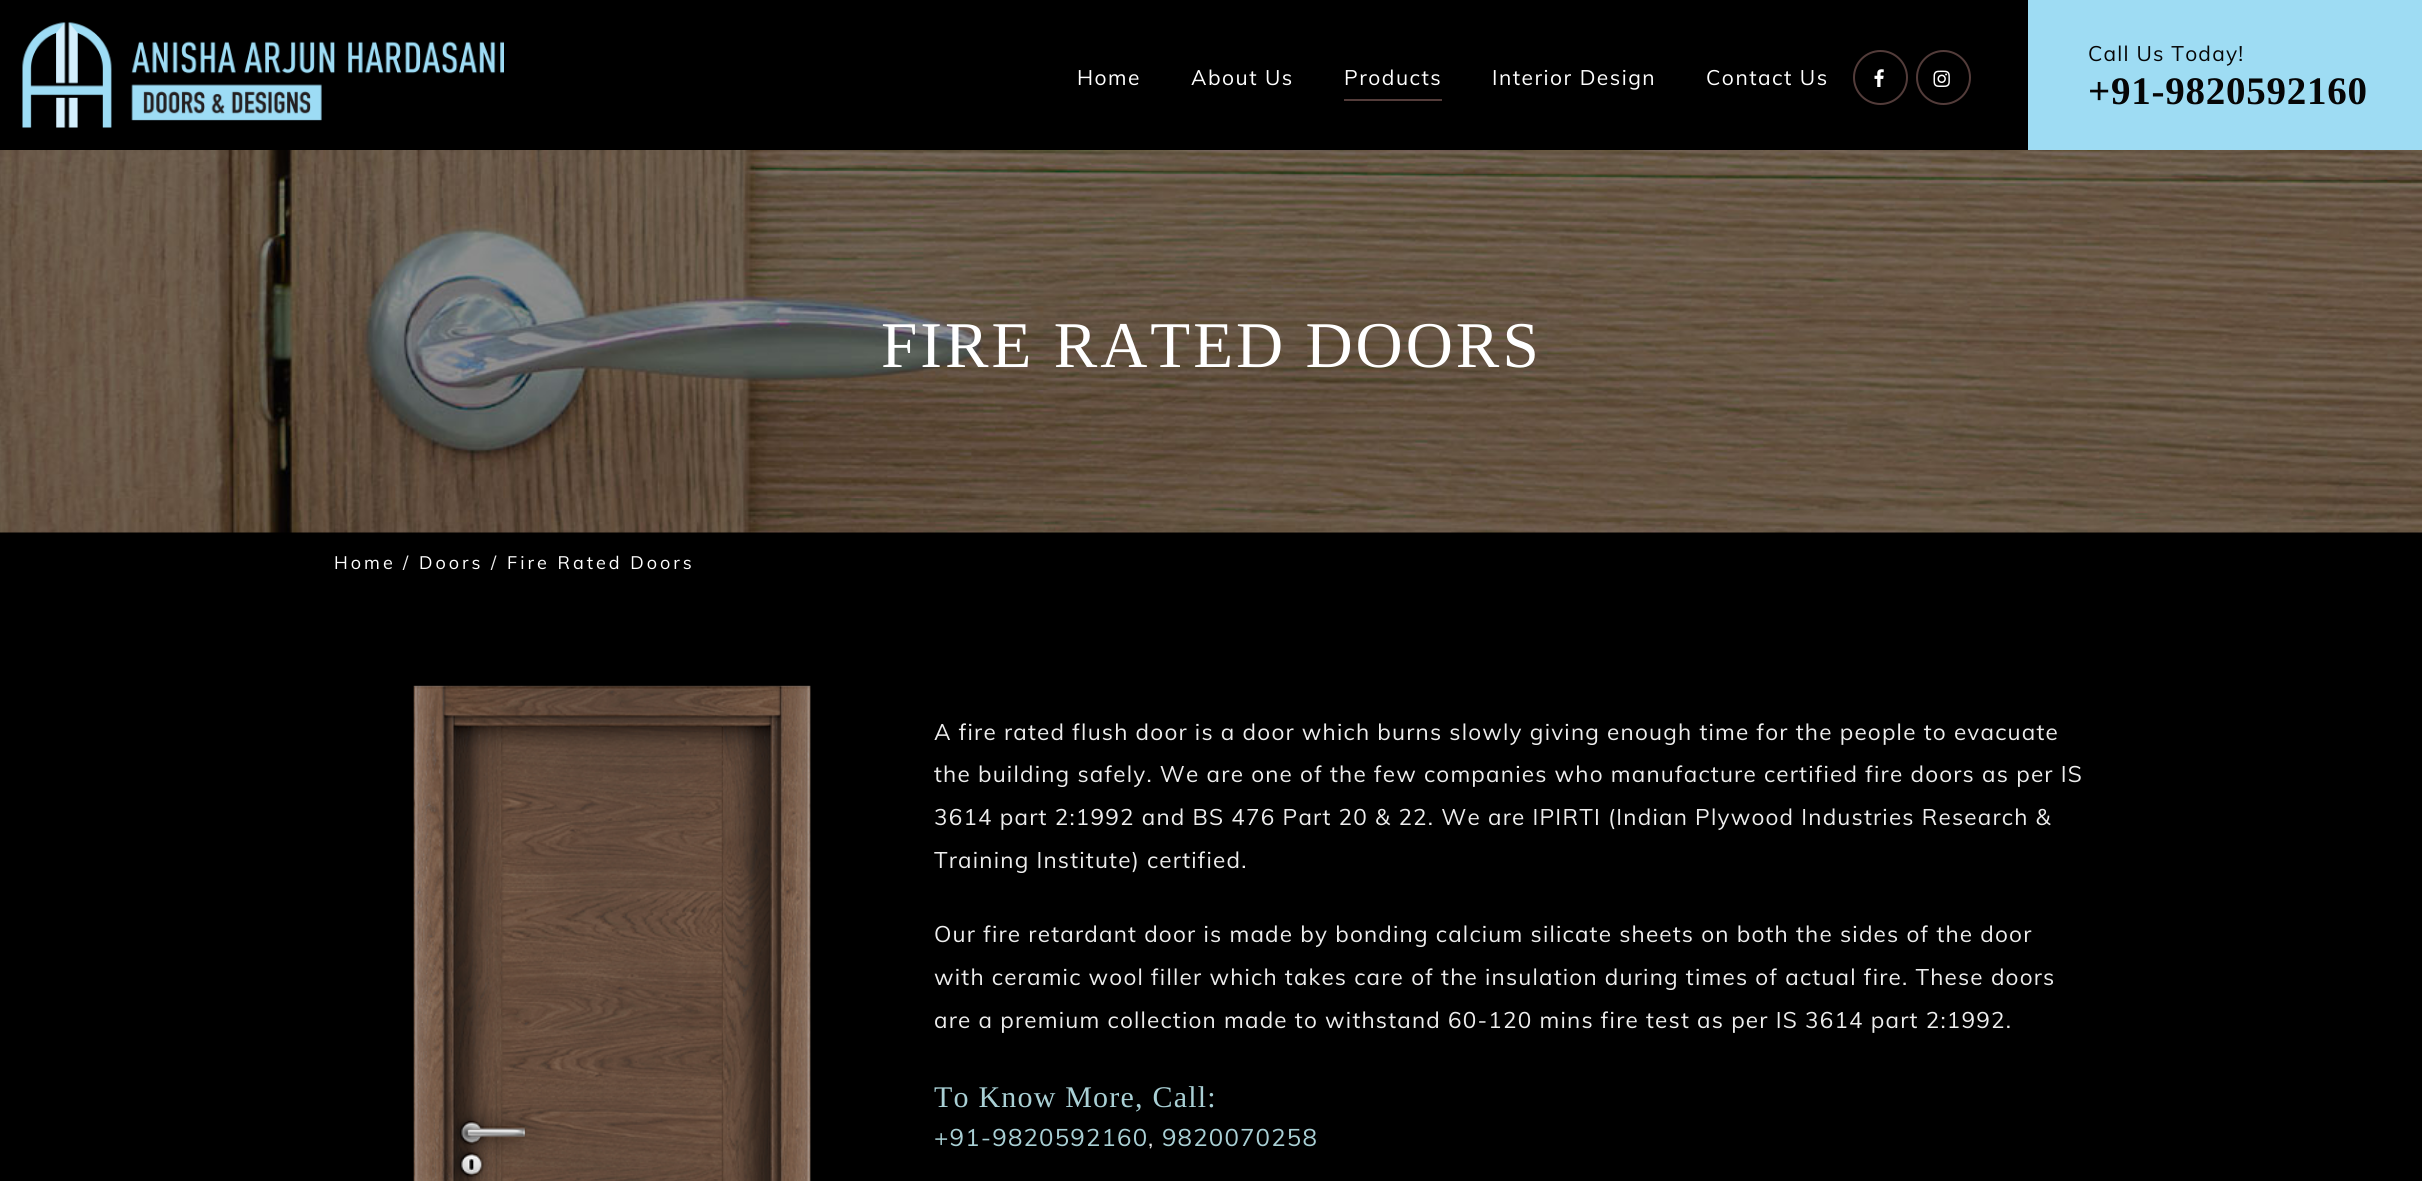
import math
import cairo

surface = cairo.ImageSurface(cairo.FORMAT_RGB24, 2422, 1181)
ctx = cairo.Context(surface)
options = cairo.FontOptions()
options.set_hint_metrics(cairo.HINT_METRICS_OFF)
options.set_hint_style(cairo.HINT_STYLE_NONE)
ctx.set_font_options(options)
ctx.set_miter_limit(4)


def spaced_text(x, y, s, letter, word):
    ctx.move_to(x, y)
    for ch in s:
        ctx.show_text(ch)
        ctx.rel_move_to(letter + word * (ch == ' '), 0)


def picture(path, x, y, w, h):
    ctx.save()
    ctx.set_source_surface(cairo.ImageSurface.create_from_png(path), x, y)
    ctx.rectangle(x, y, w, h)
    ctx.fill()
    ctx.restore()


ctx.set_source_rgb(0, 0, 0)
ctx.paint()
picture("img1.png", 22, 22, 482, 106)
ctx.select_font_face("Muli")
ctx.set_font_size(21)
ctx.set_source_rgb(1, 1, 1)
spaced_text(1077, 85, "Home", 1.5, 0)
spaced_text(1191, 85, "About Us", 1.5, 0)
ctx.set_source_rgb(0.325, 0.235, 0.227)
ctx.rectangle(1344, 99, 98, 2)
ctx.fill()
ctx.set_source_rgb(1, 1, 1)
spaced_text(1344, 85, "Products", 1.5, 0)
spaced_text(1492, 85, "Interior Design", 1.5, 0)
spaced_text(1706, 85, "Contact Us", 1.5, 0)
ctx.new_path()
ctx.arc(1880.5, 77.5, 26.5, 0, 2 * math.pi)
ctx.set_source_rgb(0.325, 0.235, 0.227)
ctx.stroke()
picture("img2.png", 1874, 69, 10, 18)
ctx.arc(1943.5, 77.5, 26.5, 0, 2 * math.pi)
ctx.stroke()
picture("img3.png", 1933, 70, 17, 17)
ctx.set_source_rgb(0.62, 0.863, 0.953)
ctx.rectangle(2028, 0, 394, 150)
ctx.fill()
ctx.set_source_rgb(0.024, 0.024, 0.024)
spaced_text(2088, 61, "Call Us Today!", 1.2, 0)
ctx.select_font_face("Liberation Serif", cairo.FONT_SLANT_NORMAL, cairo.FONT_WEIGHT_BOLD)
ctx.set_font_size(39)
spaced_text(2088, 104, "+91-9820592160", 0.75, 0)
picture("img4.png", 0, 150, 2422, 383)
ctx.select_font_face("Liberation Serif")
ctx.set_font_size(65.25)
ctx.set_source_rgb(1, 1, 1)
spaced_text(881, 367, "FIRE RATED DOORS", 3, 0)
ctx.select_font_face("Muli")
ctx.set_font_size(18)
spaced_text(334, 569, "Home", 3, 0)
ctx.set_source_rgb(0.929, 0.929, 0.929)
spaced_text(403, 569, "/", 3, 0)
ctx.set_source_rgb(1, 1, 1)
spaced_text(419, 569, "Doors", 3, 0)
ctx.set_source_rgb(0.929, 0.929, 0.929)
spaced_text(491, 569, "/", 3, 0)
ctx.set_source_rgb(1, 1, 1)
spaced_text(507, 569, "Fire Rated Doors", 3, 0)
picture("img5.png", 413, 685, 398, 496)
ctx.set_font_size(22.5)
ctx.set_source_rgb(0.929, 0.929, 0.929)
spaced_text(934, 740, "A fire rated flush door is a door which burns slowly giving enough time for the people to evacuate", 1.2, 0)
spaced_text(934, 782, "the building safely. We are one of the few companies who manufacture certified fire doors as per IS", 1.2, 0)
spaced_text(934, 825, "3614 part 2:1992 and BS 476 Part 20 & 22. We are IPIRTI (Indian Plywood Industries Research &", 1.2, 0)
spaced_text(934, 868, "Training Institute) certified.", 1.2, 0)
spaced_text(934, 942, "Our fire retardant door is made by bonding calcium silicate sheets on both the sides of the door", 1.2, 0)
spaced_text(934, 985, "with ceramic wool filler which takes care of the insulation during times of actual fire. These doors", 1.2, 0)
spaced_text(934, 1028, "are a premium collection made to withstand 60-120 mins fire test as per IS 3614 part 2:1992.", 1.2, 0)
ctx.select_font_face("Liberation Serif")
ctx.set_font_size(30)
ctx.set_source_rgb(0.663, 0.816, 0.835)
spaced_text(934, 1107, "To Know More, Call:", 1.2, 0)
ctx.select_font_face("Muli")
ctx.set_font_size(24)
spaced_text(934, 1146, "+91-9820592160", 1.2, 0)
ctx.set_font_size(22.5)
ctx.set_source_rgb(0.929, 0.929, 0.929)
spaced_text(1148, 1146, ",", 1.2, 0)
ctx.set_font_size(24)
ctx.set_source_rgb(0.663, 0.816, 0.835)
spaced_text(1162, 1146, "9820070258", 1.2, 0)
surface.write_to_png("page.png")
